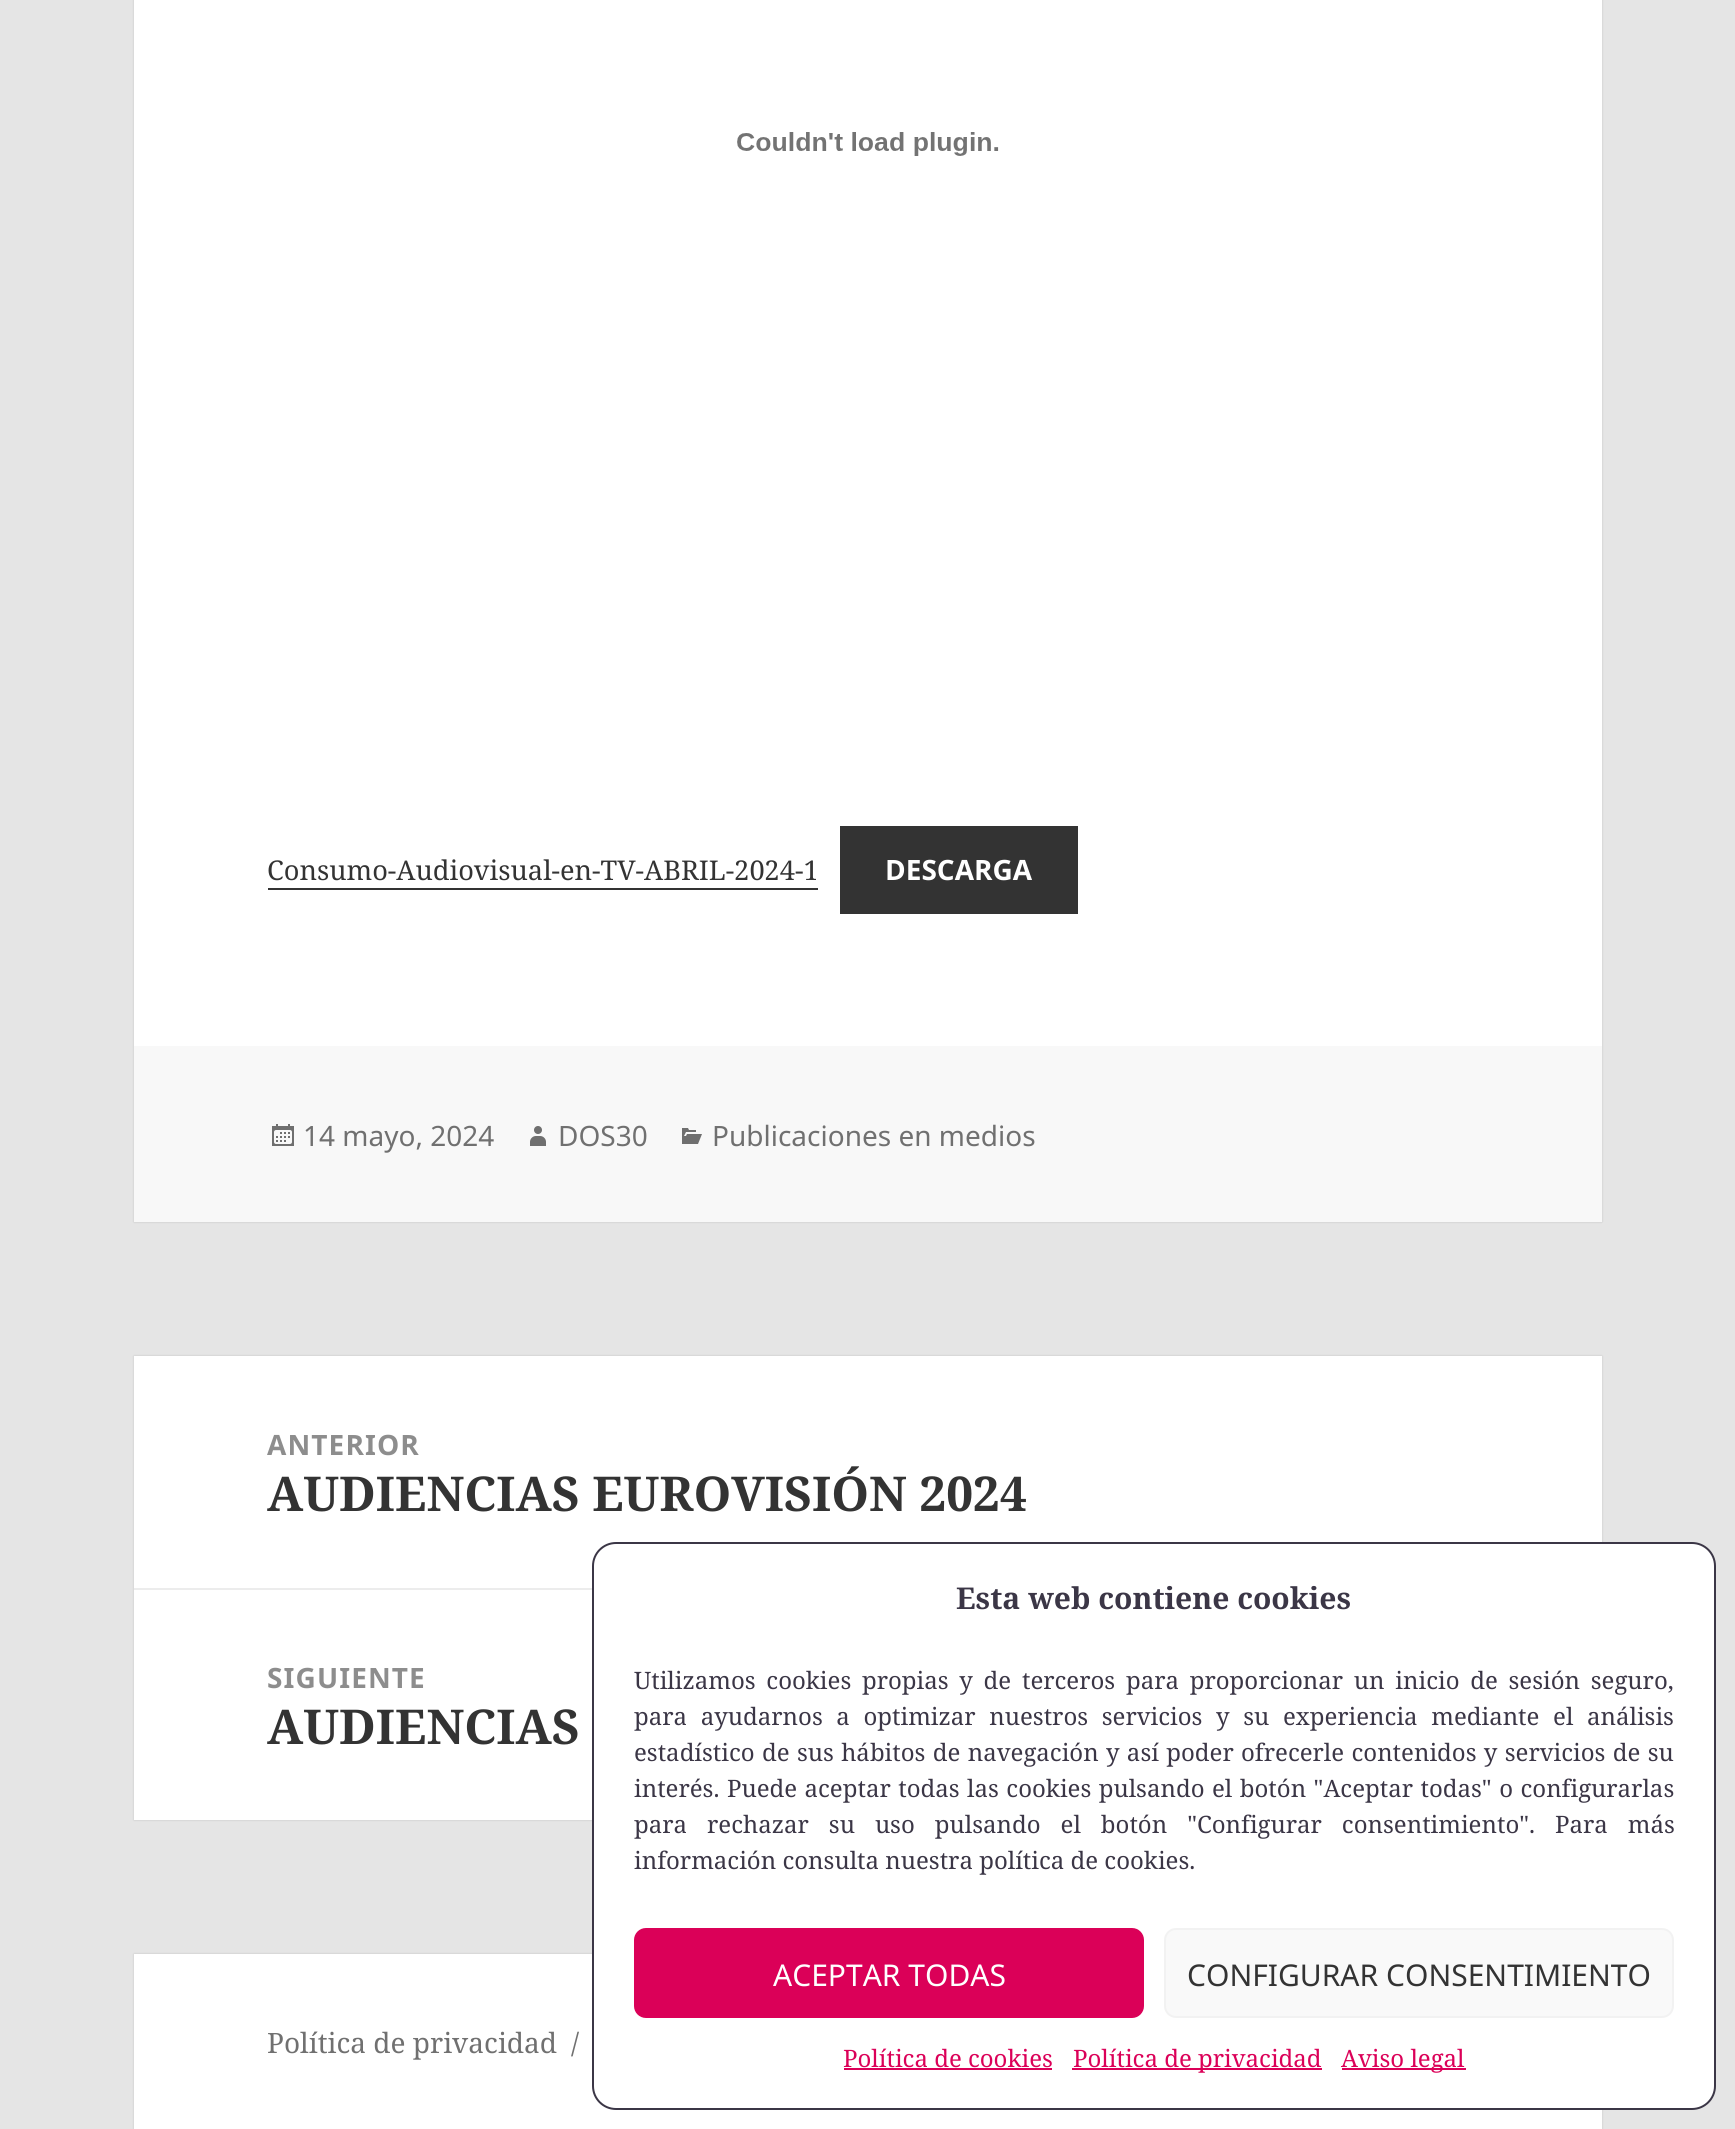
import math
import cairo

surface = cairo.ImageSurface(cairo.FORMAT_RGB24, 1735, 2129)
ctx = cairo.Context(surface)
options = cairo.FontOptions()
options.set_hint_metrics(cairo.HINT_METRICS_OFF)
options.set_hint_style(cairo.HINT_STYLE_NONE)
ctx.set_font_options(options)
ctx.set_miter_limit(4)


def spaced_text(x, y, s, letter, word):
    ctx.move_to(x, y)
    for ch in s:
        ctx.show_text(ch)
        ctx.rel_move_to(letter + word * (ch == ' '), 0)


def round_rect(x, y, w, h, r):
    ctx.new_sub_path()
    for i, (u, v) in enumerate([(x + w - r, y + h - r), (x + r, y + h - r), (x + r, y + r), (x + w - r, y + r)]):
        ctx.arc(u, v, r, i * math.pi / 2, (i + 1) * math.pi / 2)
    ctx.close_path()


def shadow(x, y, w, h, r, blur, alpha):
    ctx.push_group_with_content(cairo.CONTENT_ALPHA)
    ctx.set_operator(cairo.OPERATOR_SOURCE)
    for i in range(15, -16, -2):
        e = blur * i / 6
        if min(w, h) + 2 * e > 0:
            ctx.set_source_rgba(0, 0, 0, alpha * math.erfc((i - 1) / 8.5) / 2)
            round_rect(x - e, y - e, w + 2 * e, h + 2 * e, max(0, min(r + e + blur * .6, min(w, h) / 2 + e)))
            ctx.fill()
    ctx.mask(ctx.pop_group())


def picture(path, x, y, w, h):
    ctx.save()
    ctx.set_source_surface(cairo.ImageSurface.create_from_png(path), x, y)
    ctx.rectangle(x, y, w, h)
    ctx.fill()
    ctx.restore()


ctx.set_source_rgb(0.898, 0.898, 0.898)
ctx.paint()
ctx.set_source_rgb(0, 0, 0)
shadow(134, -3, 1468, 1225, 0, 1, 0.15)
ctx.set_source_rgb(1, 1, 1)
ctx.rectangle(134, 0, 1468, 1046)
ctx.fill()
picture("img1.png", 737, 132, 262, 24)
ctx.select_font_face("Noto Serif")
ctx.set_font_size(27.2)
ctx.set_source_rgb(0.2, 0.2, 0.2)
ctx.move_to(267, 880)
ctx.show_text("Consumo-Audiovisual-en-TV-ABRIL-2024-1")
ctx.rectangle(268, 888, 550, 2)
ctx.fill()
ctx.rectangle(840, 826, 238, 88)
ctx.fill()
ctx.select_font_face("Noto Sans", cairo.FONT_SLANT_NORMAL, cairo.FONT_WEIGHT_BOLD)
ctx.set_font_size(28)
ctx.set_source_rgb(1, 1, 1)
ctx.move_to(885, 880)
ctx.show_text("DESCARGA")
ctx.set_source_rgb(0.969, 0.969, 0.969)
ctx.rectangle(134, 1046, 1468, 176)
ctx.fill()
picture("img2.png", 272, 1124, 22, 22)
ctx.select_font_face("Noto Sans")
ctx.set_source_rgb(0.439, 0.439, 0.439)
ctx.move_to(303, 1146)
ctx.show_text("14 mayo, 2024")
picture("img3.png", 530, 1126, 16, 20)
ctx.move_to(558, 1146)
ctx.show_text("DOS30")
picture("img4.png", 682, 1128, 20, 16)
ctx.move_to(712, 1146)
ctx.show_text("Publicaciones en medios")
ctx.set_source_rgb(0, 0, 0)
shadow(134, 1356, 1468, 464, 0, 1, 0.15)
ctx.set_source_rgb(1, 1, 1)
ctx.rectangle(134, 1356, 1468, 464)
ctx.fill()
ctx.select_font_face("Noto Sans", cairo.FONT_SLANT_NORMAL, cairo.FONT_WEIGHT_BOLD)
ctx.set_source_rgb(0.553, 0.553, 0.553)
spaced_text(267, 1455, "ANTERIOR", 1.1, 0)
ctx.select_font_face("Noto Serif", cairo.FONT_SLANT_NORMAL, cairo.FONT_WEIGHT_BOLD)
ctx.set_font_size(48)
ctx.set_source_rgb(0.2, 0.2, 0.2)
ctx.move_to(267, 1511)
ctx.show_text("AUDIENCIAS EUROVISIÓN 2024")
ctx.set_source_rgb(0.922, 0.922, 0.922)
ctx.rectangle(134, 1588, 458, 2)
ctx.fill()
ctx.select_font_face("Noto Sans", cairo.FONT_SLANT_NORMAL, cairo.FONT_WEIGHT_BOLD)
ctx.set_font_size(28)
ctx.set_source_rgb(0.553, 0.553, 0.553)
spaced_text(267, 1688, "SIGUIENTE", 1.1, 0)
ctx.select_font_face("Noto Serif", cairo.FONT_SLANT_NORMAL, cairo.FONT_WEIGHT_BOLD)
ctx.set_font_size(48)
ctx.set_source_rgb(0.2, 0.2, 0.2)
ctx.move_to(267, 1744)
ctx.show_text("AUDIENCIAS")
ctx.set_source_rgb(0, 0, 0)
shadow(134, 1954, 1468, 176, 0, 1, 0.15)
ctx.set_source_rgb(1, 1, 1)
ctx.rectangle(134, 1954, 1468, 175)
ctx.fill()
ctx.select_font_face("Noto Serif")
ctx.set_font_size(28)
ctx.set_source_rgb(0.439, 0.439, 0.439)
ctx.move_to(267, 2053)
ctx.show_text("Política de privacidad")
ctx.move_to(571, 2053)
ctx.show_text("/")
ctx.set_source_rgb(1, 1, 1)
round_rect(593, 1543, 1122, 566, 23)
ctx.fill_preserve()
ctx.set_source_rgb(0.231, 0.212, 0.275)
ctx.stroke()
ctx.select_font_face("Noto Serif", cairo.FONT_SLANT_NORMAL, cairo.FONT_WEIGHT_BOLD)
ctx.set_font_size(30)
ctx.move_to(956, 1609)
ctx.show_text("Esta web contiene cookies")
ctx.select_font_face("Noto Serif")
ctx.set_font_size(24)
spaced_text(634, 1689, "Utilizamos cookies propias y de terceros para proporcionar un inicio de sesión seguro,", 0, 4.5)
spaced_text(634, 1725, "para ayudarnos a optimizar nuestros servicios y su experiencia mediante el análisis", 0, 7.4)
spaced_text(634, 1761, "estadístico de sus hábitos de navegación y así poder ofrecerle contenidos y servicios de su", 0, 1.1)
spaced_text(634, 1797, "interés. Puede aceptar todas las cookies pulsando el botón \"Aceptar todas\" o configurarlas", 0, 1.25)
spaced_text(634, 1833, "para rechazar su uso pulsando el botón \"Configurar consentimiento\". Para más", 0, 13.75)
ctx.move_to(634, 1869)
ctx.show_text("información consulta nuestra política de cookies.")
ctx.set_source_rgb(0.859, 0, 0.345)
round_rect(635, 1929, 508, 88, 11)
ctx.fill_preserve()
ctx.stroke()
ctx.select_font_face("Noto Sans")
ctx.set_font_size(30)
ctx.set_source_rgb(1, 1, 1)
ctx.move_to(773, 1986)
ctx.show_text("ACEPTAR TODAS")
ctx.set_source_rgb(0.976, 0.976, 0.976)
round_rect(1165, 1929, 508, 88, 11)
ctx.fill_preserve()
ctx.set_source_rgb(0.949, 0.949, 0.949)
ctx.stroke()
ctx.set_source_rgb(0.2, 0.2, 0.2)
ctx.move_to(1187, 1986)
ctx.show_text("CONFIGURAR CONSENTIMIENTO")
ctx.select_font_face("Noto Serif")
ctx.set_font_size(24)
ctx.set_source_rgb(0.859, 0, 0.345)
ctx.move_to(843, 2067)
ctx.show_text("Política de cookies")
ctx.rectangle(844, 2068, 208, 2)
ctx.fill()
ctx.rectangle(1072, 2068, 250, 2)
ctx.fill()
ctx.move_to(1073, 2067)
ctx.show_text("Política de privacidad")
ctx.rectangle(1342, 2068, 124, 2)
ctx.fill()
ctx.move_to(1341, 2067)
ctx.show_text("Aviso legal")
surface.write_to_png("page.png")
